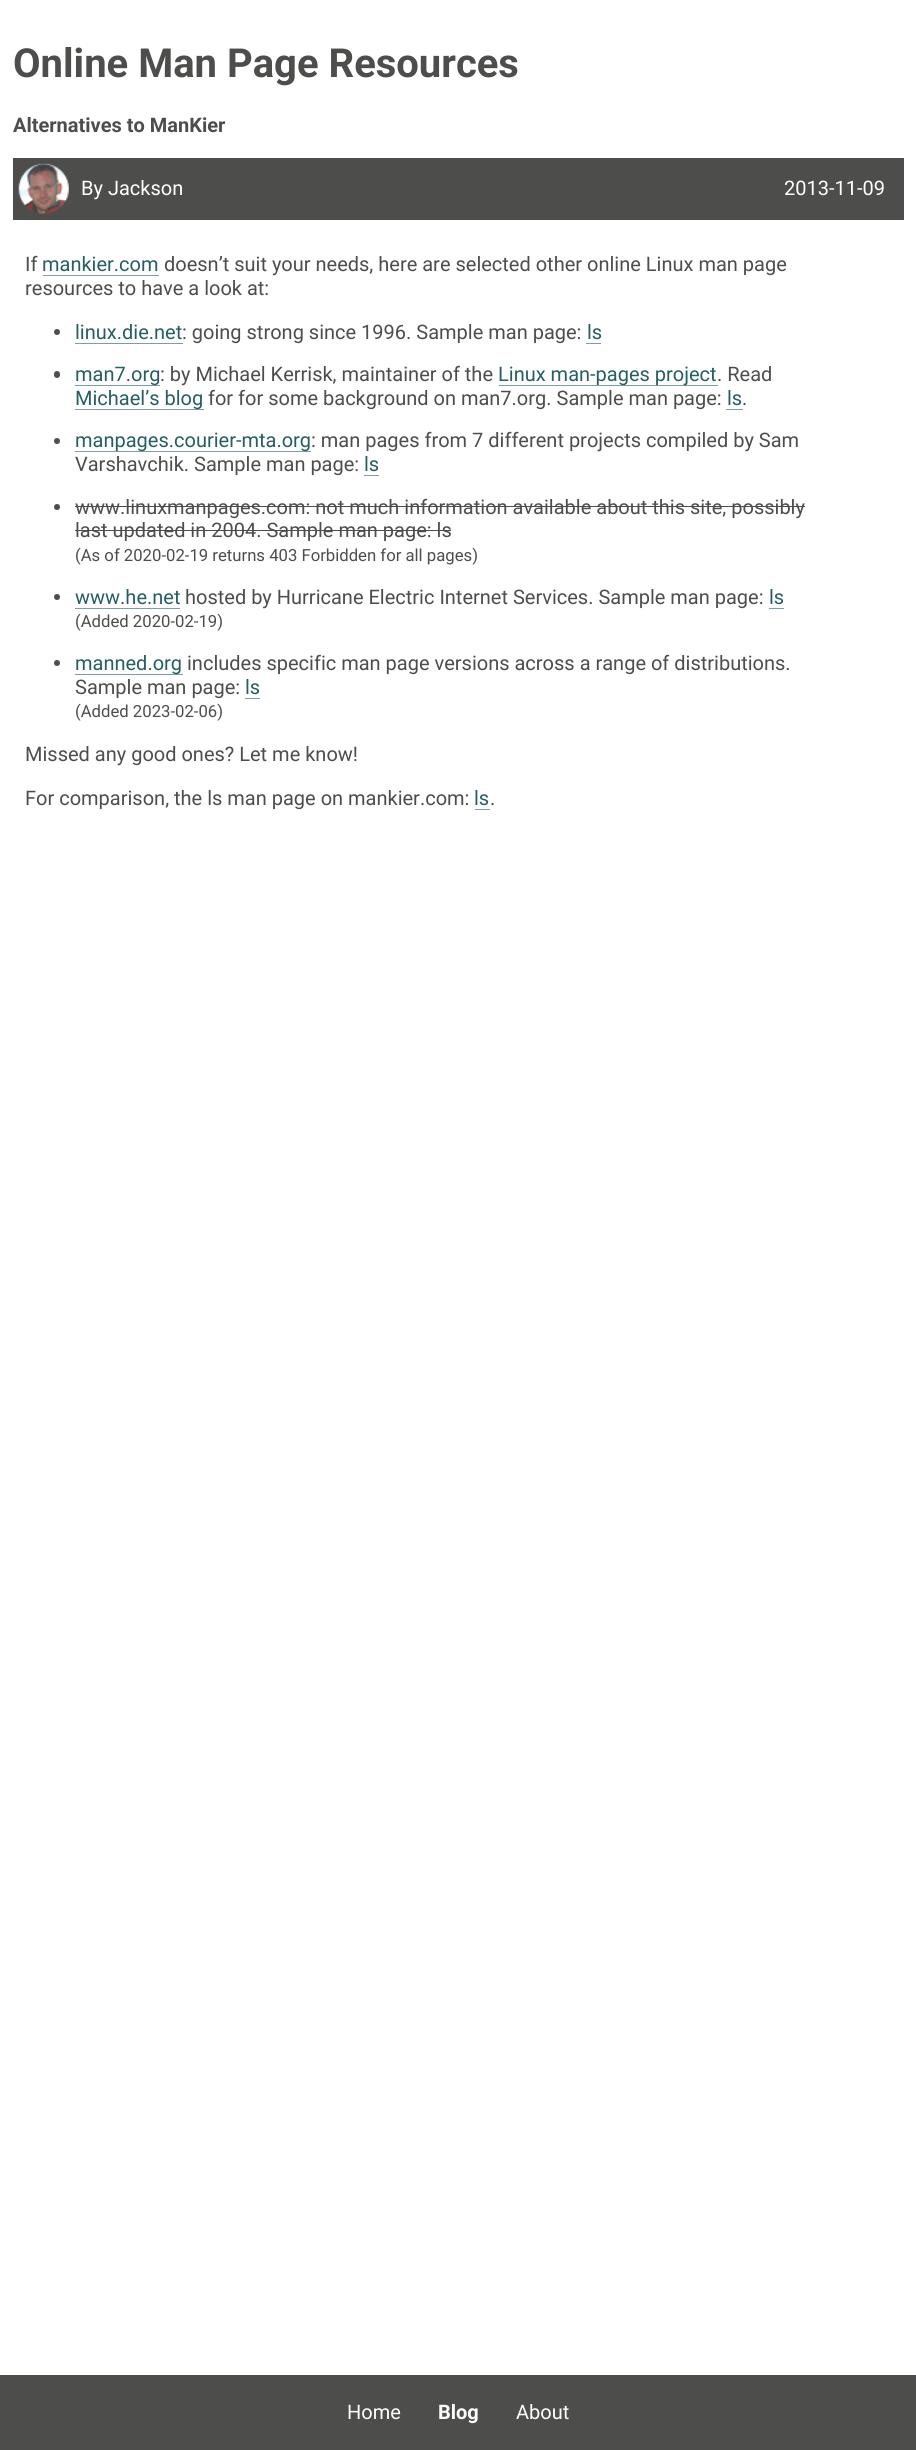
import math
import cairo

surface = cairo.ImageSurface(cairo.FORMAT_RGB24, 916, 2450)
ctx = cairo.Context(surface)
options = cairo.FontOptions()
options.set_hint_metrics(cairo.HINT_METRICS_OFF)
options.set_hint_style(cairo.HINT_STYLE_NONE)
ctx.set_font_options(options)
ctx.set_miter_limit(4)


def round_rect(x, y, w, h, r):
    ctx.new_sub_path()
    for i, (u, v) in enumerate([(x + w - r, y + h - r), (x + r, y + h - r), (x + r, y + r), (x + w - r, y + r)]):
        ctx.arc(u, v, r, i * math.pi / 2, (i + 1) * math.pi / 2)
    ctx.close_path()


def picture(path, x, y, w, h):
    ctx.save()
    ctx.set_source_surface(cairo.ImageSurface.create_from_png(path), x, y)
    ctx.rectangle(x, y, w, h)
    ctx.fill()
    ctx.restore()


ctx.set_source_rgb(1, 1, 1)
ctx.paint()
ctx.select_font_face("Roboto", cairo.FONT_SLANT_NORMAL, cairo.FONT_WEIGHT_BOLD)
ctx.set_font_size(40)
ctx.set_source_rgb(0.302, 0.302, 0.298)
ctx.move_to(13, 77)
ctx.show_text("Online Man Page Resources")
ctx.set_font_size(20)
ctx.move_to(13, 132)
ctx.show_text("Alternatives to ManKier")
ctx.rectangle(13, 158, 891, 62)
ctx.fill()
picture("img1.png", 18, 163, 51, 51)
ctx.select_font_face("Roboto")
ctx.set_source_rgb(1, 1, 1)
ctx.move_to(81, 195)
ctx.show_text("By Jackson")
ctx.move_to(784, 195)
ctx.show_text("2013-11-09")
ctx.set_source_rgb(0.302, 0.302, 0.298)
ctx.move_to(25, 271)
ctx.show_text("If")
ctx.set_source_rgb(0.149, 0.369, 0.384)
ctx.move_to(42, 271)
ctx.show_text("mankier.com")
ctx.set_source_rgb(0.49, 0.62, 0.631)
ctx.rectangle(43, 275, 116, 1)
ctx.fill()
ctx.set_source_rgb(0.302, 0.302, 0.298)
ctx.move_to(164, 271)
ctx.show_text("doesn’t suit your needs, here are selected other online Linux man page")
ctx.move_to(25, 295)
ctx.show_text("resources to have a look at:")
ctx.new_path()
ctx.arc(57, 332, 3, 0, 2 * math.pi)
ctx.fill()
ctx.set_source_rgb(0.149, 0.369, 0.384)
ctx.move_to(75, 339)
ctx.show_text("linux.die.net")
ctx.set_source_rgb(0.49, 0.62, 0.631)
ctx.rectangle(75, 343, 108, 1)
ctx.fill()
ctx.set_source_rgb(0.302, 0.302, 0.298)
ctx.move_to(182, 339)
ctx.show_text(": going strong since 1996. Sample man page:")
ctx.set_source_rgb(0.149, 0.369, 0.384)
ctx.move_to(587, 339)
ctx.show_text("ls")
ctx.set_source_rgb(0.49, 0.62, 0.631)
ctx.rectangle(586, 343, 15, 1)
ctx.fill()
ctx.set_source_rgb(0.302, 0.302, 0.298)
round_rect(54, 371, 6, 7, 3)
ctx.fill()
ctx.set_source_rgb(0.49, 0.62, 0.631)
ctx.rectangle(75, 385, 85, 1)
ctx.fill()
ctx.set_source_rgb(0.149, 0.369, 0.384)
ctx.move_to(75, 381)
ctx.show_text("man7.org")
ctx.set_source_rgb(0.302, 0.302, 0.298)
ctx.move_to(160, 381)
ctx.show_text(": by Michael Kerrisk, maintainer of the")
ctx.set_source_rgb(0.49, 0.62, 0.631)
ctx.rectangle(499, 385, 219, 1)
ctx.fill()
ctx.set_source_rgb(0.149, 0.369, 0.384)
ctx.move_to(498, 381)
ctx.show_text("Linux man-pages project")
ctx.set_source_rgb(0.302, 0.302, 0.298)
ctx.move_to(717, 381)
ctx.show_text(". Read")
ctx.set_source_rgb(0.49, 0.62, 0.631)
ctx.rectangle(75, 409, 129, 1)
ctx.fill()
ctx.set_source_rgb(0.149, 0.369, 0.384)
ctx.move_to(75, 405)
ctx.show_text("Michael’s blog")
ctx.set_source_rgb(0.302, 0.302, 0.298)
ctx.move_to(208, 405)
ctx.show_text("for for some background on man7.org. Sample man page:")
ctx.set_source_rgb(0.149, 0.369, 0.384)
ctx.move_to(727, 405)
ctx.show_text("ls")
ctx.set_source_rgb(0.49, 0.62, 0.631)
ctx.rectangle(726, 409, 17, 1)
ctx.fill()
ctx.set_source_rgb(0.302, 0.302, 0.298)
ctx.move_to(742, 405)
ctx.show_text(".")
ctx.new_path()
ctx.arc(57, 441, 3, 0, 2 * math.pi)
ctx.fill()
ctx.set_source_rgb(0.49, 0.62, 0.631)
ctx.rectangle(75, 451, 236, 1)
ctx.fill()
ctx.set_source_rgb(0.149, 0.369, 0.384)
ctx.move_to(75, 447)
ctx.show_text("manpages.courier-mta.org")
ctx.set_source_rgb(0.302, 0.302, 0.298)
ctx.move_to(311, 447)
ctx.show_text(": man pages from 7 different projects compiled by Sam")
ctx.move_to(75, 471)
ctx.show_text("Varshavchik. Sample man page:")
ctx.set_source_rgb(0.149, 0.369, 0.384)
ctx.move_to(364, 471)
ctx.show_text("ls")
ctx.set_source_rgb(0.49, 0.62, 0.631)
ctx.rectangle(364, 475, 15, 1)
ctx.fill()
ctx.set_source_rgb(0.302, 0.302, 0.298)
ctx.arc(57, 507, 3, 0, 2 * math.pi)
ctx.fill()
ctx.move_to(75, 514)
ctx.show_text("www.linuxmanpages.com: not much information available about this site, possibly")
ctx.rectangle(75, 506, 730, 1)
ctx.fill()
ctx.move_to(75, 537)
ctx.show_text("last updated in 2004. Sample man page: ls")
ctx.rectangle(75, 530, 376, 1)
ctx.fill()
ctx.set_font_size(16.7)
ctx.move_to(75, 561)
ctx.show_text("(As of 2020-02-19 returns 403 Forbidden for all pages)")
ctx.new_path()
ctx.arc(57, 597, 3, 0, 2 * math.pi)
ctx.fill()
ctx.set_font_size(20)
ctx.set_source_rgb(0.149, 0.369, 0.384)
ctx.move_to(75, 604)
ctx.show_text("www.he.net")
ctx.set_source_rgb(0.49, 0.62, 0.631)
ctx.rectangle(75, 608, 105, 1)
ctx.fill()
ctx.set_source_rgb(0.302, 0.302, 0.298)
ctx.move_to(185, 604)
ctx.show_text("hosted by Hurricane Electric Internet Services. Sample man page:")
ctx.set_source_rgb(0.149, 0.369, 0.384)
ctx.move_to(769, 604)
ctx.show_text("ls")
ctx.set_source_rgb(0.49, 0.62, 0.631)
ctx.rectangle(769, 608, 15, 1)
ctx.fill()
ctx.set_font_size(16.7)
ctx.set_source_rgb(0.302, 0.302, 0.298)
ctx.move_to(75, 627)
ctx.show_text("(Added 2020-02-19)")
ctx.new_path()
ctx.arc(57, 663, 3, 0, 2 * math.pi)
ctx.fill()
ctx.set_source_rgb(0.49, 0.62, 0.631)
ctx.rectangle(75, 674, 108, 1)
ctx.fill()
ctx.set_font_size(20)
ctx.set_source_rgb(0.149, 0.369, 0.384)
ctx.move_to(75, 670)
ctx.show_text("manned.org")
ctx.set_source_rgb(0.302, 0.302, 0.298)
ctx.move_to(187, 670)
ctx.show_text("includes specific man page versions across a range of distributions.")
ctx.move_to(75, 694)
ctx.show_text("Sample man page:")
ctx.set_source_rgb(0.149, 0.369, 0.384)
ctx.move_to(245, 694)
ctx.show_text("ls")
ctx.set_source_rgb(0.49, 0.62, 0.631)
ctx.rectangle(245, 698, 15, 1)
ctx.fill()
ctx.set_font_size(16.7)
ctx.set_source_rgb(0.302, 0.302, 0.298)
ctx.move_to(75, 717)
ctx.show_text("(Added 2023-02-06)")
ctx.set_font_size(20)
ctx.move_to(25, 761)
ctx.show_text("Missed any good ones? Let me know!")
ctx.move_to(25, 805)
ctx.show_text("For comparison, the ls man page on mankier.com:")
ctx.set_source_rgb(0.149, 0.369, 0.384)
ctx.move_to(474, 805)
ctx.show_text("ls")
ctx.set_source_rgb(0.49, 0.62, 0.631)
ctx.rectangle(475, 809, 15, 1)
ctx.fill()
ctx.set_source_rgb(0.302, 0.302, 0.298)
ctx.move_to(490, 805)
ctx.show_text(".")
ctx.rectangle(0, 2375, 916, 75)
ctx.fill()
ctx.set_source_rgb(1, 1, 1)
ctx.move_to(347, 2419)
ctx.show_text("Home")
ctx.select_font_face("Roboto", cairo.FONT_SLANT_NORMAL, cairo.FONT_WEIGHT_BOLD)
ctx.move_to(438, 2419)
ctx.show_text("Blog")
ctx.select_font_face("Roboto")
ctx.move_to(516, 2419)
ctx.show_text("About")
surface.write_to_png("page.png")
